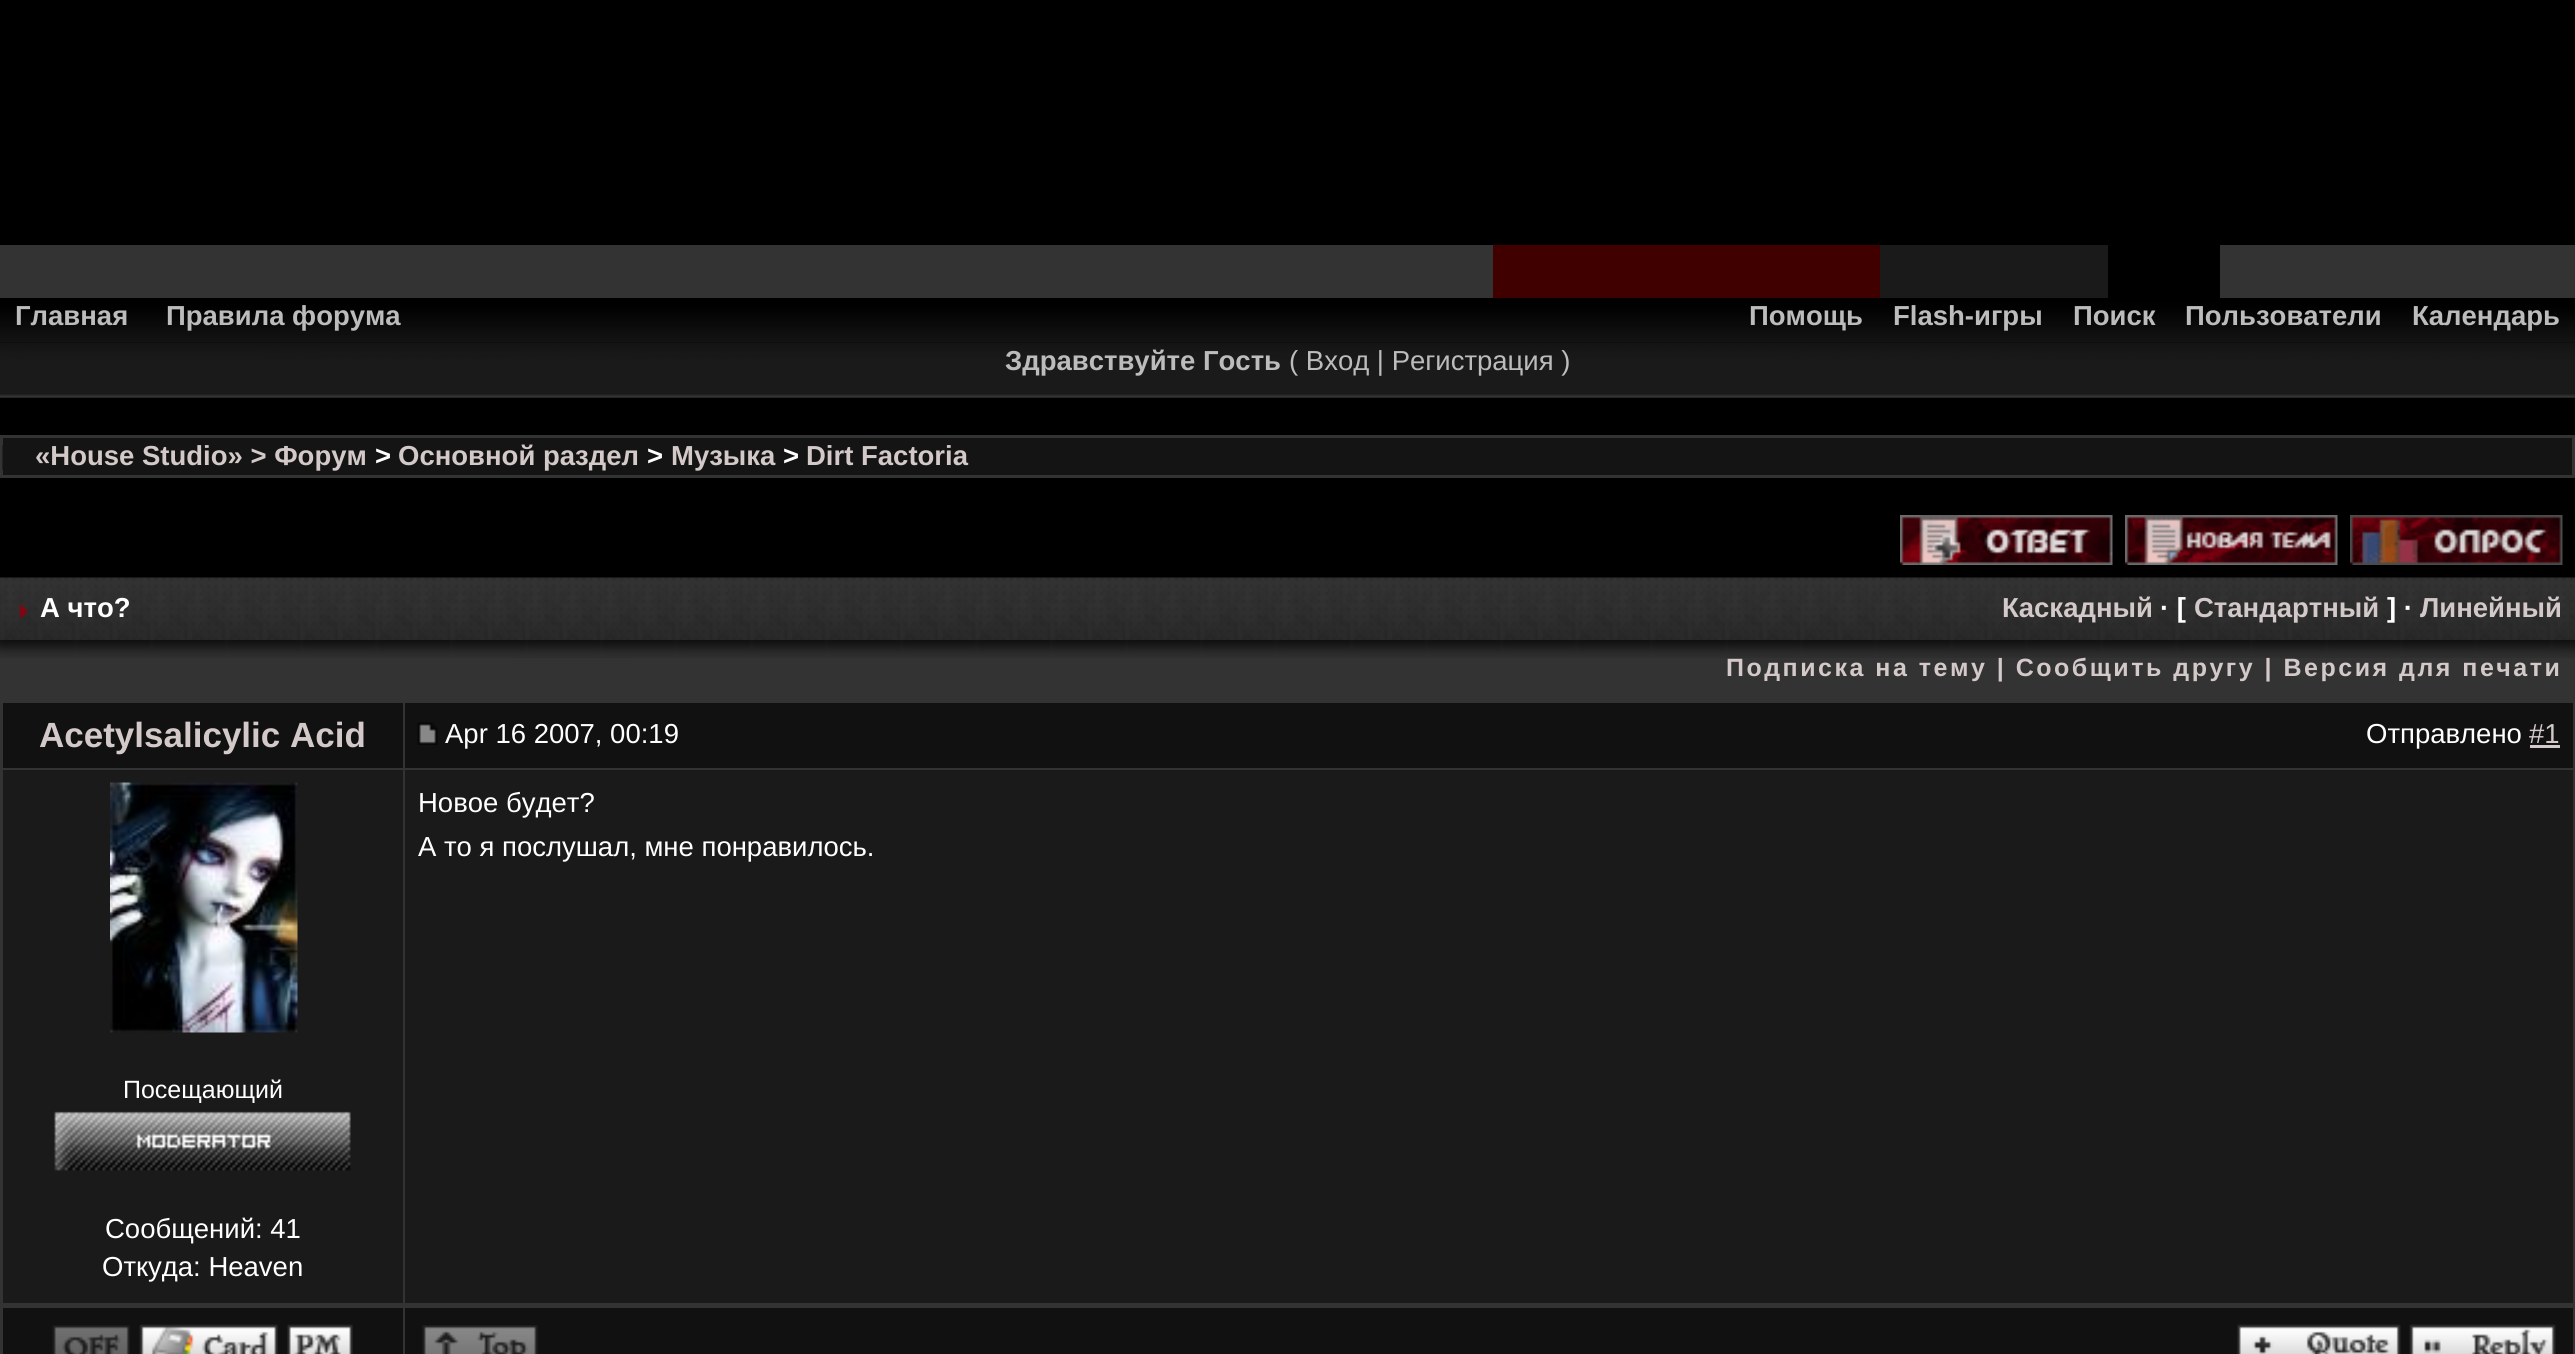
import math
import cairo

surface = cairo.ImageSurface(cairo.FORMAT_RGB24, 2575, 1354)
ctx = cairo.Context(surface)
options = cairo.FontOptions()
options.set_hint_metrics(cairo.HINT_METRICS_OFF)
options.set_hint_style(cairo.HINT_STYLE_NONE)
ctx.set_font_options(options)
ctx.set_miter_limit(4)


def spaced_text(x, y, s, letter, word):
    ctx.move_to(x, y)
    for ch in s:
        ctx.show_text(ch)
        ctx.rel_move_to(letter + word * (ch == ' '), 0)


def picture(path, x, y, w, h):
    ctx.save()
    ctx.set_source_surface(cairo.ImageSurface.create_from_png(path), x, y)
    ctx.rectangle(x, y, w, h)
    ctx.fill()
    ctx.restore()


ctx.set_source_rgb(0, 0, 0)
ctx.paint()
ctx.set_source_rgb(0.2, 0.2, 0.2)
ctx.rectangle(0, 245, 1493, 53)
ctx.fill()
ctx.set_source_rgb(0.255, 0, 0)
ctx.rectangle(1493, 245, 387, 53)
ctx.fill()
ctx.set_source_rgb(0.102, 0.102, 0.102)
ctx.rectangle(1880, 245, 228, 53)
ctx.fill()
ctx.set_source_rgb(0.2, 0.2, 0.2)
ctx.rectangle(2220, 245, 355, 53)
ctx.fill()
picture("img1.png", 0, 298, 2575, 45)
ctx.select_font_face("Liberation Sans", cairo.FONT_SLANT_NORMAL, cairo.FONT_WEIGHT_BOLD)
ctx.set_font_size(27.5)
ctx.set_source_rgb(0.737, 0.737, 0.737)
ctx.move_to(15, 325)
ctx.show_text("Главная")
ctx.move_to(166, 325)
ctx.show_text("Правила форума")
ctx.move_to(1749, 325)
ctx.show_text("Помощь")
ctx.move_to(1893, 325)
ctx.show_text("Flash-игры")
ctx.move_to(2073, 325)
ctx.show_text("Поиск")
ctx.move_to(2185, 325)
ctx.show_text("Пользователи")
ctx.move_to(2412, 325)
ctx.show_text("Календарь")
ctx.set_source_rgb(0.102, 0.102, 0.102)
ctx.rectangle(0, 397, 2575, 1)
ctx.fill()
picture("img2.png", 0, 342, 2575, 56)
ctx.set_source_rgb(0.737, 0.737, 0.737)
ctx.move_to(1005, 370)
ctx.show_text("Здравствуйте Гость")
ctx.select_font_face("Liberation Sans")
ctx.move_to(1289, 370)
ctx.show_text("( Вход | Регистрация )")
ctx.set_source_rgb(0.082, 0.082, 0.082)
ctx.rectangle(1.5, 436.5, 2572, 40)
ctx.fill_preserve()
ctx.set_source_rgb(0.2, 0.2, 0.2)
ctx.set_line_width(3)
ctx.stroke()
ctx.set_source_rgb(0.133, 0.133, 0.133)
ctx.rectangle(2, 445, 1, 25)
ctx.fill()
ctx.select_font_face("Liberation Sans", cairo.FONT_SLANT_NORMAL, cairo.FONT_WEIGHT_BOLD)
ctx.set_source_rgb(0.824, 0.788, 0.784)
ctx.move_to(35, 465)
ctx.show_text("«House Studio» > Форум")
ctx.set_source_rgb(1, 1, 1)
ctx.move_to(375, 465)
ctx.show_text(">")
ctx.set_source_rgb(0.824, 0.788, 0.784)
ctx.move_to(398, 465)
ctx.show_text("Основной раздел")
ctx.set_source_rgb(1, 1, 1)
ctx.move_to(647, 465)
ctx.show_text(">")
ctx.set_source_rgb(0.824, 0.788, 0.784)
ctx.move_to(671, 465)
ctx.show_text("Музыка")
ctx.set_source_rgb(1, 1, 1)
ctx.move_to(783, 465)
ctx.show_text(">")
ctx.set_source_rgb(0.824, 0.788, 0.784)
ctx.move_to(806, 465)
ctx.show_text("Dirt Factoria")
picture("img3.png", 1900, 515, 213, 50)
picture("img4.png", 2125, 515, 213, 50)
picture("img5.png", 2350, 515, 213, 50)
ctx.set_source_rgb(0.2, 0.2, 0.2)
ctx.rectangle(0, 658, 2575, 696)
ctx.fill()
picture("img6.png", 0, 577, 2575, 63)
picture("img7.png", 19, 604, 10, 15)
ctx.set_source_rgb(1, 1, 1)
ctx.move_to(40, 617)
ctx.show_text("А что?")
ctx.set_source_rgb(0.824, 0.788, 0.784)
ctx.move_to(2002, 617)
ctx.show_text("Каскадный")
ctx.set_source_rgb(1, 1, 1)
ctx.move_to(2160, 617)
ctx.show_text("· [")
ctx.set_source_rgb(0.824, 0.788, 0.784)
ctx.move_to(2194, 617)
ctx.show_text("Стандартный")
ctx.set_source_rgb(1, 1, 1)
ctx.move_to(2387, 617)
ctx.show_text("] ·")
ctx.set_source_rgb(0.824, 0.788, 0.784)
ctx.move_to(2420, 617)
ctx.show_text("Линейный")
picture("img8.png", 0, 640, 2575, 18)
ctx.set_font_size(25)
spaced_text(1726, 676, "Подписка на тему | Сообщить другу | Версия для печати", 2.5, 0)
ctx.set_source_rgb(0.067, 0.067, 0.067)
ctx.rectangle(3, 703, 400, 65)
ctx.fill()
ctx.set_font_size(35)
ctx.set_source_rgb(0.824, 0.788, 0.784)
ctx.move_to(39, 747)
ctx.show_text("Acetylsalicylic Acid")
ctx.set_source_rgb(0.067, 0.067, 0.067)
ctx.rectangle(405, 703, 2168, 65)
ctx.fill()
picture("img9.png", 417, 722, 21, 23)
ctx.select_font_face("Liberation Sans")
ctx.set_font_size(27.5)
ctx.set_source_rgb(1, 1, 1)
ctx.move_to(445, 743)
ctx.show_text("Apr 16 2007, 00:19")
ctx.move_to(2366, 743)
ctx.show_text("Отправлено")
ctx.set_source_rgb(0.824, 0.788, 0.784)
ctx.move_to(2529, 743)
ctx.show_text("#1")
ctx.rectangle(2530, 745, 30, 3)
ctx.fill()
ctx.set_source_rgb(0.102, 0.102, 0.102)
ctx.rectangle(405, 770, 2168, 533)
ctx.fill()
ctx.set_source_rgb(1, 1, 1)
ctx.move_to(418, 812)
ctx.show_text("Новое будет?")
ctx.move_to(418, 856)
ctx.show_text("А то я послушал, мне понравилось.")
ctx.set_source_rgb(0.102, 0.102, 0.102)
ctx.rectangle(3, 770, 400, 533)
ctx.fill()
picture("img10.png", 110, 782, 188, 251)
ctx.set_font_size(25)
ctx.set_source_rgb(1, 1, 1)
ctx.move_to(123, 1098)
ctx.show_text("Посещающий")
picture("img11.png", 54, 1111, 297, 60)
ctx.set_font_size(27.5)
ctx.move_to(105, 1238)
ctx.show_text("Сообщений: 41")
ctx.move_to(102, 1276)
ctx.show_text("Откуда: Heaven")
ctx.set_source_rgb(0.067, 0.067, 0.067)
ctx.rectangle(3, 1308, 400, 46)
ctx.fill()
picture("img12.png", 52, 1325, 78, 29)
picture("img13.png", 139, 1324, 139, 30)
picture("img14.png", 287, 1324, 66, 30)
ctx.rectangle(405, 1308, 2168, 46)
ctx.fill()
picture("img15.png", 422, 1325, 116, 29)
picture("img16.png", 2237, 1324, 164, 30)
picture("img17.png", 2409, 1324, 147, 30)
surface.write_to_png("page.png")
